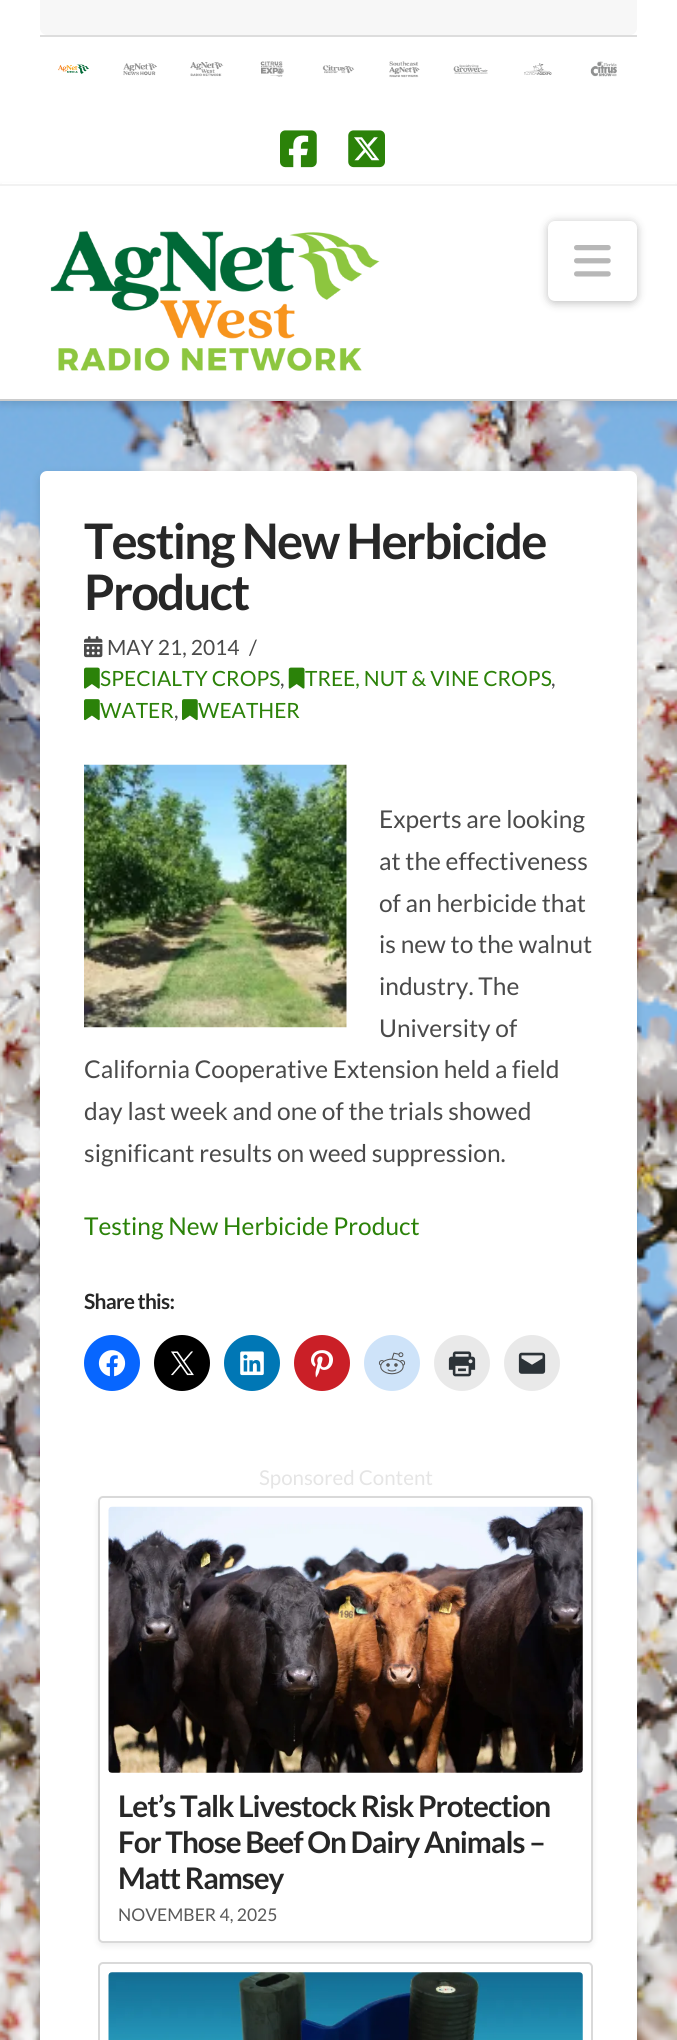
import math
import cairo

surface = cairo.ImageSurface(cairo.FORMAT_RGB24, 677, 2040)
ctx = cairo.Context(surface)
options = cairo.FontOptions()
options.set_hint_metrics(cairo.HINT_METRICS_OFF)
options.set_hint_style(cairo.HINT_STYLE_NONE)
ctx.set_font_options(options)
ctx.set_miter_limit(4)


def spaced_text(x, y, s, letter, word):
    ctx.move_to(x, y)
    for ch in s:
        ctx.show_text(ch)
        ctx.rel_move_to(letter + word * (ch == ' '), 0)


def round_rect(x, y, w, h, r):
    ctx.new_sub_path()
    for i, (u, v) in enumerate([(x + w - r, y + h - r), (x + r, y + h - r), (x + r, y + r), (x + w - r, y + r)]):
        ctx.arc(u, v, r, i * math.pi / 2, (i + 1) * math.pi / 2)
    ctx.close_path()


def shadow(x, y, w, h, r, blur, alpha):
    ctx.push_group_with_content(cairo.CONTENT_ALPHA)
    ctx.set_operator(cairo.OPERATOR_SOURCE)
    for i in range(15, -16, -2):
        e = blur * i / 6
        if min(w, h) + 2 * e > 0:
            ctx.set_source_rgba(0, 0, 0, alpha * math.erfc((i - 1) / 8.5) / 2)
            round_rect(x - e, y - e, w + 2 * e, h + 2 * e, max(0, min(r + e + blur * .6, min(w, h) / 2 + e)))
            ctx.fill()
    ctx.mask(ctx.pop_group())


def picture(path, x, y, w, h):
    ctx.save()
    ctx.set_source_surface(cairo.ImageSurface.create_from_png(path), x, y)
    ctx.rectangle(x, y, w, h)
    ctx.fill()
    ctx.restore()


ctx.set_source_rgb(1, 1, 1)
ctx.paint()
picture("img1.png", 0, 401, 677, 1639)
ctx.set_source_rgb(0, 0, 0)
shadow(0, 189, 677, 215, 0, 4.5, 0.13)
ctx.set_source_rgb(1, 1, 1)
ctx.rectangle(2, 183, 673, 1)
ctx.fill()
ctx.set_source_rgb(0.949, 0.949, 0.949)
ctx.rectangle(0, 184, 677, 2)
ctx.fill()
ctx.set_source_rgb(0.965, 0.965, 0.965)
ctx.new_path()
ctx.move_to(40, 0)
ctx.line_to(637, 0)
ctx.line_to(637, 28)
ctx.curve_to(637, 32, 634, 35, 630, 35)
ctx.line_to(47, 35)
ctx.curve_to(43, 35, 40, 32, 40, 28)
ctx.close_path()
ctx.fill()
ctx.set_source_rgb(0.867, 0.867, 0.867)
ctx.rectangle(40, 35, 597, 2)
ctx.fill()
picture("img2.png", 590, 61, 27, 16)
picture("img3.png", 58, 64, 31, 10)
picture("img4.png", 123, 63, 34, 13)
picture("img5.png", 190, 62, 34, 15)
picture("img6.png", 260, 61, 24, 16)
picture("img7.png", 322, 65, 33, 9)
picture("img8.png", 389, 61, 31, 17)
picture("img9.png", 453, 64, 35, 10)
picture("img10.png", 524, 63, 28, 12)
picture("img11.png", 280, 130, 37, 38)
picture("img12.png", 348, 130, 37, 38)
ctx.set_source_rgb(1, 1, 1)
ctx.rectangle(0, 186, 677, 213)
ctx.fill()
ctx.set_source_rgb(0.8, 0.8, 0.8)
ctx.rectangle(0, 399, 677, 2)
ctx.fill()
picture("img13.png", 50, 231, 330, 140)
ctx.set_source_rgb(0, 0, 0)
shadow(548, 222, 89, 81, 7, 4.5, 0.25)
ctx.set_source_rgb(1, 1, 1)
round_rect(548, 221, 89, 80, 7)
ctx.fill()
picture("img14.png", 574, 245, 37, 32)
ctx.set_source_rgb(0, 0, 0)
shadow(40, 474, 597, 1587, 7, 4.5, 0.13)
ctx.set_source_rgb(1, 1, 1)
round_rect(40, 471, 597, 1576, 7)
ctx.fill()
ctx.select_font_face("Lato", cairo.FONT_SLANT_NORMAL, cairo.FONT_WEIGHT_BOLD)
ctx.set_font_size(49)
ctx.set_source_rgb(0.153, 0.153, 0.153)
spaced_text(84, 559, "Testing New Herbicide", -1.75, 0)
spaced_text(84, 610, "Product", -1.75, 0)
picture("img15.png", 84, 636, 19, 22)
ctx.select_font_face("Lato")
ctx.set_font_size(21)
ctx.set_source_rgb(0.29, 0.29, 0.29)
ctx.move_to(107, 655)
ctx.show_text("MAY 21, 2014")
ctx.move_to(249, 655)
ctx.show_text("/")
picture("img16.png", 84, 667, 16, 22)
ctx.set_source_rgb(0.169, 0.51, 0.035)
ctx.move_to(100, 686)
ctx.show_text("SPECIALTY CROPS")
ctx.set_source_rgb(0.29, 0.29, 0.29)
ctx.move_to(280, 686)
ctx.show_text(",")
picture("img17.png", 288, 667, 17, 22)
ctx.set_source_rgb(0.169, 0.51, 0.035)
ctx.move_to(305, 686)
ctx.show_text("TREE, NUT & VINE CROPS")
ctx.set_source_rgb(0.29, 0.29, 0.29)
ctx.move_to(551, 686)
ctx.show_text(",")
picture("img18.png", 84, 699, 16, 22)
ctx.set_source_rgb(0.169, 0.51, 0.035)
ctx.move_to(100, 718)
ctx.show_text("WATER")
ctx.set_source_rgb(0.29, 0.29, 0.29)
ctx.move_to(174, 718)
ctx.show_text(",")
picture("img18.png", 182, 699, 16, 22)
ctx.set_source_rgb(0.169, 0.51, 0.035)
ctx.move_to(198, 718)
ctx.show_text("WEATHER")
picture("img19.png", 84, 764, 263, 264)
ctx.set_font_size(24.5)
ctx.set_source_rgb(0.29, 0.29, 0.29)
ctx.move_to(379, 828)
ctx.show_text("Experts are looking")
ctx.move_to(379, 870)
ctx.show_text("at the effectiveness")
ctx.move_to(379, 912)
ctx.show_text("of an herbicide that")
ctx.move_to(379, 953)
ctx.show_text("is new to the walnut")
ctx.move_to(379, 995)
ctx.show_text("industry. The")
ctx.move_to(379, 1037)
ctx.show_text("University of")
ctx.move_to(84, 1078)
ctx.show_text("California Cooperative Extension held a field")
ctx.move_to(84, 1120)
ctx.show_text("day last week and one of the trials showed")
ctx.move_to(84, 1162)
ctx.show_text("significant results on weed suppression.")
ctx.set_source_rgb(0.169, 0.51, 0.035)
ctx.move_to(84, 1235)
ctx.show_text("Testing New Herbicide Product")
ctx.select_font_face("Lato", cairo.FONT_SLANT_NORMAL, cairo.FONT_WEIGHT_BOLD)
ctx.set_font_size(21)
ctx.set_source_rgb(0.153, 0.153, 0.153)
spaced_text(84, 1309, "Share this:", -0.75, 0)
ctx.set_source_rgb(0.031, 0.4, 1)
ctx.new_path()
ctx.arc(112, 1363, 28, 0, 2 * math.pi)
ctx.fill()
picture("img20.png", 98, 1350, 28, 27)
ctx.set_source_rgb(0, 0, 0)
ctx.arc(182, 1363, 28, 0, 2 * math.pi)
ctx.fill()
picture("img21.png", 171, 1351, 23, 25)
ctx.set_source_rgb(0, 0.467, 0.71)
ctx.arc(252, 1363, 28, 0, 2 * math.pi)
ctx.fill()
picture("img22.png", 240, 1351, 24, 25)
ctx.set_source_rgb(0.792, 0.122, 0.153)
ctx.arc(322, 1363, 28, 0, 2 * math.pi)
ctx.fill()
picture("img23.png", 311, 1350, 22, 28)
ctx.set_source_rgb(0.808, 0.89, 0.973)
ctx.arc(392, 1363, 28, 0, 2 * math.pi)
ctx.fill()
picture("img24.png", 378, 1352, 28, 23)
ctx.set_source_rgb(0.914, 0.914, 0.914)
ctx.arc(462, 1363, 28, 0, 2 * math.pi)
ctx.fill()
picture("img25.png", 448, 1351, 28, 26)
ctx.arc(532, 1363, 28, 0, 2 * math.pi)
ctx.fill()
picture("img26.png", 518, 1352, 28, 22)
ctx.select_font_face("Lato")
ctx.set_font_size(20.5)
ctx.set_source_rgb(0.898, 0.898, 0.898)
ctx.move_to(259, 1485)
ctx.show_text("Sponsored Content")
ctx.set_source_rgb(0, 0, 0)
shadow(98, 1500, 495, 446, 5, 3.5, 0.07)
ctx.set_source_rgb(1, 1, 1)
round_rect(98, 1496, 495, 447, 5)
ctx.fill()
round_rect(99, 1497, 493, 445, 4)
ctx.set_source_rgba(0, 0, 0, 0.15)
ctx.stroke()
picture("img27.png", 108, 1506, 475, 267)
ctx.select_font_face("Lato", cairo.FONT_SLANT_NORMAL, cairo.FONT_WEIGHT_BOLD)
ctx.set_font_size(29.75)
ctx.set_source_rgb(0.153, 0.153, 0.153)
spaced_text(118, 1817, "Let’s Talk Livestock Risk Protection", -1.05, 0)
spaced_text(118, 1853, "For Those Beef On Dairy Animals –", -1.05, 0)
spaced_text(118, 1889, "Matt Ramsey", -1.05, 0)
ctx.select_font_face("Lato")
ctx.set_font_size(17.5)
ctx.set_source_rgb(0.349, 0.349, 0.349)
ctx.move_to(118, 1921)
ctx.show_text("NOVEMBER 4, 2025")
round_rect(99, 1963, 493, 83, 4)
ctx.set_source_rgb(0.851, 0.851, 0.851)
ctx.stroke()
picture("img28.png", 108, 1972, 475, 68)
surface.write_to_png("page.png")
